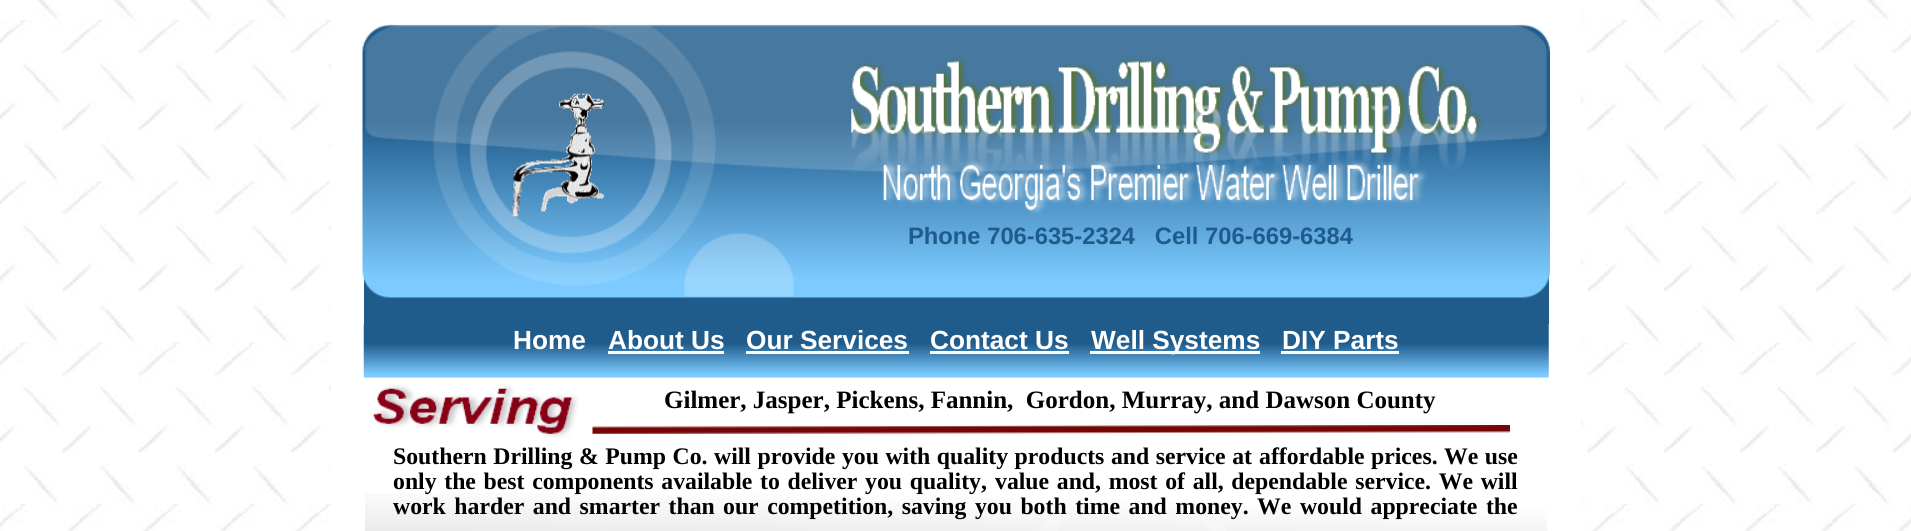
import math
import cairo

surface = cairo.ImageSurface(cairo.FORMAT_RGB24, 1911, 531)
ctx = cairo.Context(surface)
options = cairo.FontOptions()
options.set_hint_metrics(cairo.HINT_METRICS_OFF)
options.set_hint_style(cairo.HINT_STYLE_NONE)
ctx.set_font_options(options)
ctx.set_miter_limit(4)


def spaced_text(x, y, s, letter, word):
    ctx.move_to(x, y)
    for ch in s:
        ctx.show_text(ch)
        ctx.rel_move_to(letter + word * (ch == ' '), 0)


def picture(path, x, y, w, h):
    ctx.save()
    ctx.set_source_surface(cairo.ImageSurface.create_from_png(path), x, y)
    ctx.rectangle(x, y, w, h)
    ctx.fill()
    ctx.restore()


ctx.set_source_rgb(1, 1, 1)
ctx.paint()
picture("img1.png", 0, 0, 1911, 531)
ctx.set_source_rgb(1, 1, 1)
ctx.rectangle(331, 0, 1250, 531)
ctx.fill()
picture("img5.png", 363, 323, 1186, 55)
ctx.set_source_rgb(0.122, 0.357, 0.545)
ctx.rectangle(364, 270, 1185, 54)
ctx.fill()
picture("img2.png", 362, 24, 1188, 274)
picture("img3.png", 512, 93, 92, 124)
picture("img4.png", 850, 58, 633, 156)
ctx.select_font_face("Liberation Sans", cairo.FONT_SLANT_NORMAL, cairo.FONT_WEIGHT_BOLD)
ctx.set_font_size(23.75)
ctx.move_to(908, 244)
ctx.show_text("Phone 706-635-2324   Cell 706-669-6384")
ctx.set_font_size(26.25)
ctx.set_source_rgb(1, 1, 1)
ctx.move_to(513, 349)
ctx.show_text("Home")
ctx.move_to(608, 349)
ctx.show_text("About Us")
ctx.rectangle(608, 351, 116, 3)
ctx.fill()
ctx.move_to(746, 349)
ctx.show_text("Our Services")
ctx.rectangle(746, 351, 163, 3)
ctx.fill()
ctx.move_to(930, 349)
ctx.show_text("Contact Us")
ctx.rectangle(930, 351, 139, 3)
ctx.fill()
ctx.rectangle(1090, 351, 170, 3)
ctx.fill()
ctx.move_to(1091, 349)
ctx.show_text("Well Systems")
ctx.move_to(1282, 349)
ctx.show_text("DIY Parts")
ctx.rectangle(1281, 351, 118, 3)
ctx.fill()
picture("img6.png", 373, 384, 206, 54)
ctx.select_font_face("Liberation Serif", cairo.FONT_SLANT_NORMAL, cairo.FONT_WEIGHT_BOLD)
ctx.set_font_size(25)
ctx.set_source_rgb(0, 0, 0)
ctx.move_to(664, 408)
ctx.show_text("Gilmer, Jasper, Pickens, Fannin,  Gordon, Murray, and Dawson County")
picture("img7.png", 592, 425, 918, 9)
ctx.set_font_size(23.75)
spaced_text(393, 464, "Southern Drilling & Pump Co. will provide you with quality products and service at", 0, 0.6)
spaced_text(1259, 464, "affordable prices. We use", 0, 0.5)
picture("img8.png", 365, 493, 1183, 38)
spaced_text(393, 489, "only the best components available to deliver you quality,", 0, 1.75)
spaced_text(995, 489, "value and, most of all, dependable service. We will", 0, 1.75)
spaced_text(393, 514, "work harder and smarter than", 0, 2.6)
spaced_text(723, 514, "our competition, saving you both time and money. We would appreciate the", 0, 2.6)
surface.write_to_png("page.png")
